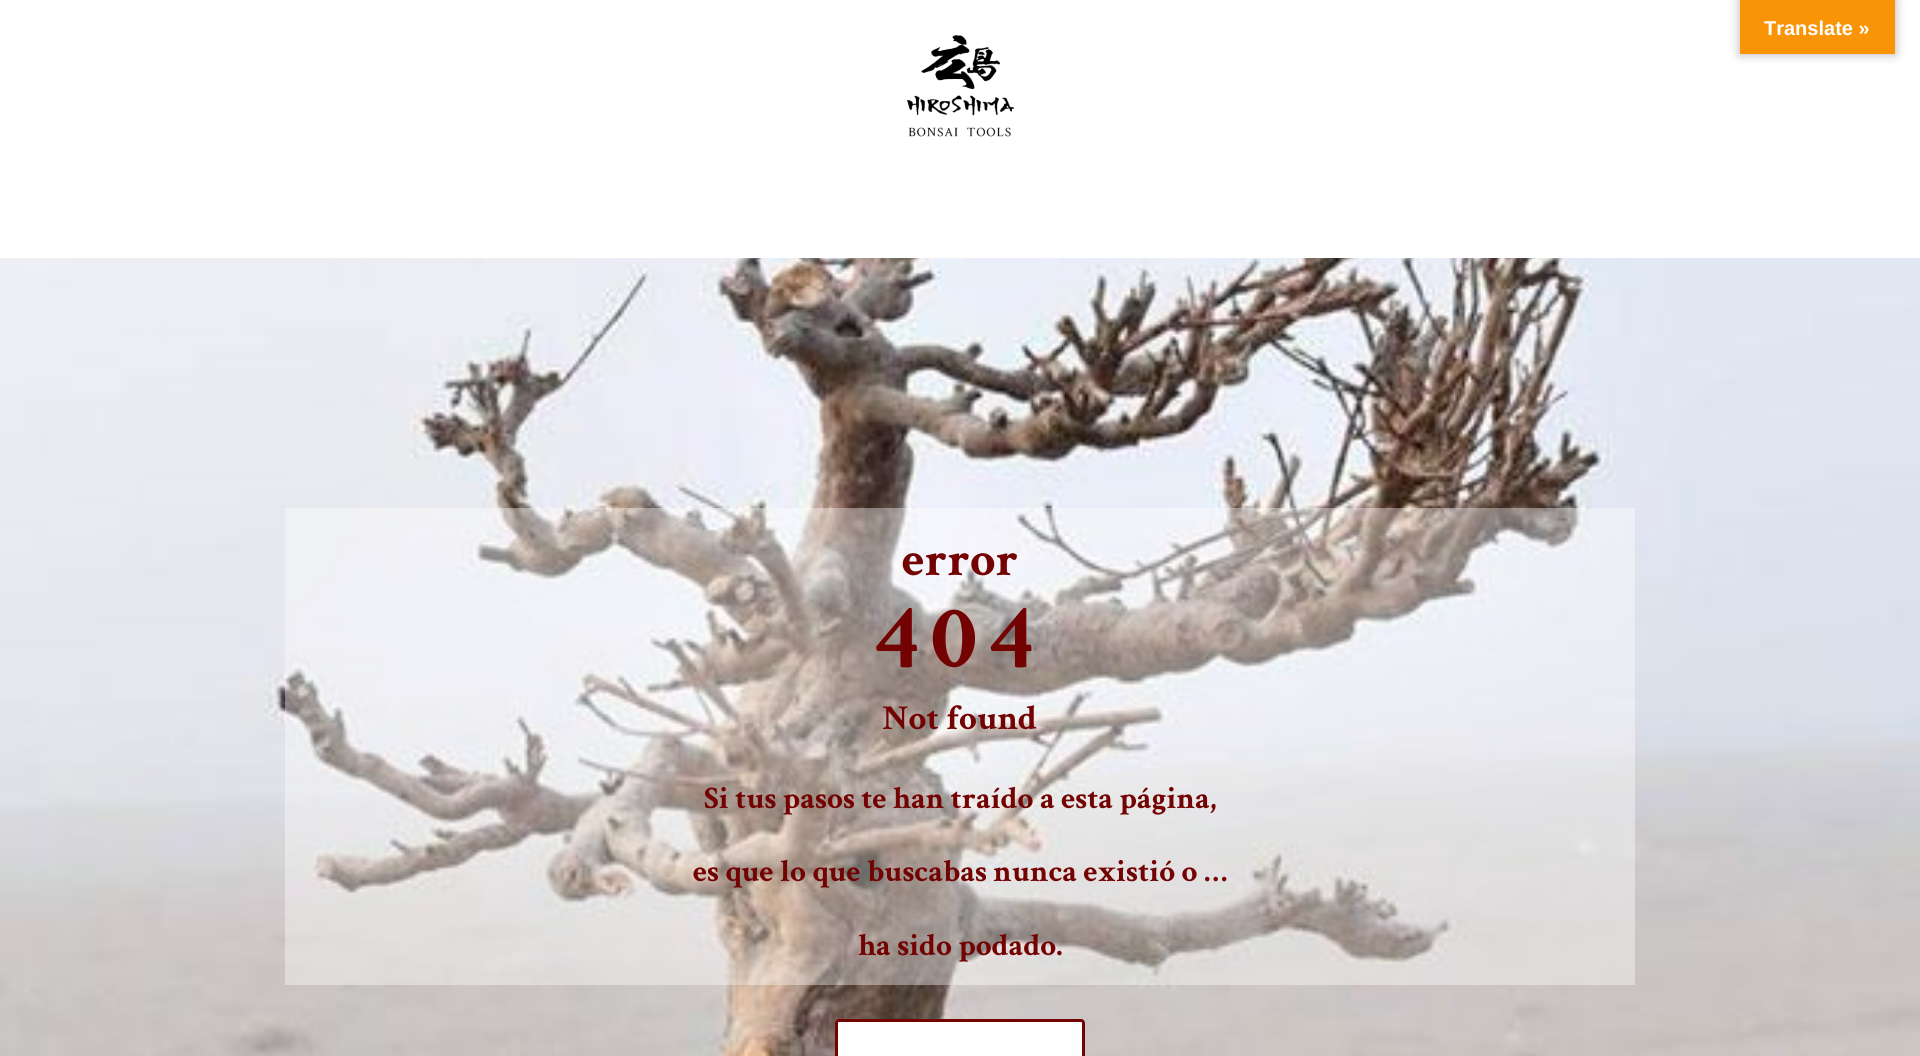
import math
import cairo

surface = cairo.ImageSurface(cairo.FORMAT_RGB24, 1920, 1056)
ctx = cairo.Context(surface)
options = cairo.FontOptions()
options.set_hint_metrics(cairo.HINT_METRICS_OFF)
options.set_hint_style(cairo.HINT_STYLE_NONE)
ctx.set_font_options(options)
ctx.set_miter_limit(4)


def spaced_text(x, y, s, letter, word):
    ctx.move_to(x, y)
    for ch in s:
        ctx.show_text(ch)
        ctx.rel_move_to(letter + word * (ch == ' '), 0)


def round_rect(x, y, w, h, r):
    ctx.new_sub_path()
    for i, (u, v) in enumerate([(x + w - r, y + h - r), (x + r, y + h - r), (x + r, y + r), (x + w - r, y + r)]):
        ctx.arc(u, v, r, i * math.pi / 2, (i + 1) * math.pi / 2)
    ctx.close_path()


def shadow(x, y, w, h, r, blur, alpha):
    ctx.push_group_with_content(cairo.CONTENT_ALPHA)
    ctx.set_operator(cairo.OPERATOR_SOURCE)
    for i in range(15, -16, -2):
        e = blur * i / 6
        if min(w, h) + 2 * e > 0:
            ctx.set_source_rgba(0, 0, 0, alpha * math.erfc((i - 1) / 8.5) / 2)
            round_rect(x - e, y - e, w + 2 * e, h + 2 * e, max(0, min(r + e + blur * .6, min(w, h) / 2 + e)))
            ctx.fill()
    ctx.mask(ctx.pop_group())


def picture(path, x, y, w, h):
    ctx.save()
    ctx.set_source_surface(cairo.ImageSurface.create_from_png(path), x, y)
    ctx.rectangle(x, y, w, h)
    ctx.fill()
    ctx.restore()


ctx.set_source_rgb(1, 1, 1)
ctx.paint()
ctx.set_source_rgb(0, 0, 0)
shadow(1740, 0, 155, 54, 0, 5.5, 0.3)
ctx.set_source_rgb(0.973, 0.58, 0.024)
ctx.rectangle(1740, 0, 155, 54)
ctx.fill()
ctx.select_font_face("Liberation Sans", cairo.FONT_SLANT_NORMAL, cairo.FONT_WEIGHT_BOLD)
ctx.set_font_size(20)
ctx.set_source_rgb(1, 1, 1)
ctx.move_to(1764, 35)
ctx.show_text("Translate »")
picture("img1.png", 901, 35, 114, 102)
picture("img2.png", 0, 258, 1920, 798)
ctx.set_source_rgba(1, 1, 1, 0.39)
ctx.rectangle(285, 508, 1350, 477)
ctx.fill()
ctx.select_font_face("Crimson Text", cairo.FONT_SLANT_NORMAL, cairo.FONT_WEIGHT_BOLD)
ctx.set_font_size(50)
ctx.set_source_rgb(0.451, 0.008, 0.008)
ctx.move_to(902, 575)
ctx.show_text("error")
ctx.set_font_size(94)
spaced_text(874, 667, "404", 11, 0)
ctx.set_font_size(35)
ctx.move_to(882, 729)
ctx.show_text("Not found")
ctx.set_font_size(31.25)
ctx.move_to(704, 808)
ctx.show_text("Si tus pasos te han traído a esta página,")
ctx.move_to(693, 881)
ctx.show_text("es que lo que buscabas nunca existió o …")
ctx.move_to(858, 955)
ctx.show_text("ha sido podado.")
ctx.set_source_rgb(1, 1, 1)
round_rect(836.5, 1020.5, 247, 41, 2.5)
ctx.fill_preserve()
ctx.set_source_rgb(0.451, 0.008, 0.008)
ctx.set_line_width(3)
ctx.stroke()
surface.write_to_png("page.png")
